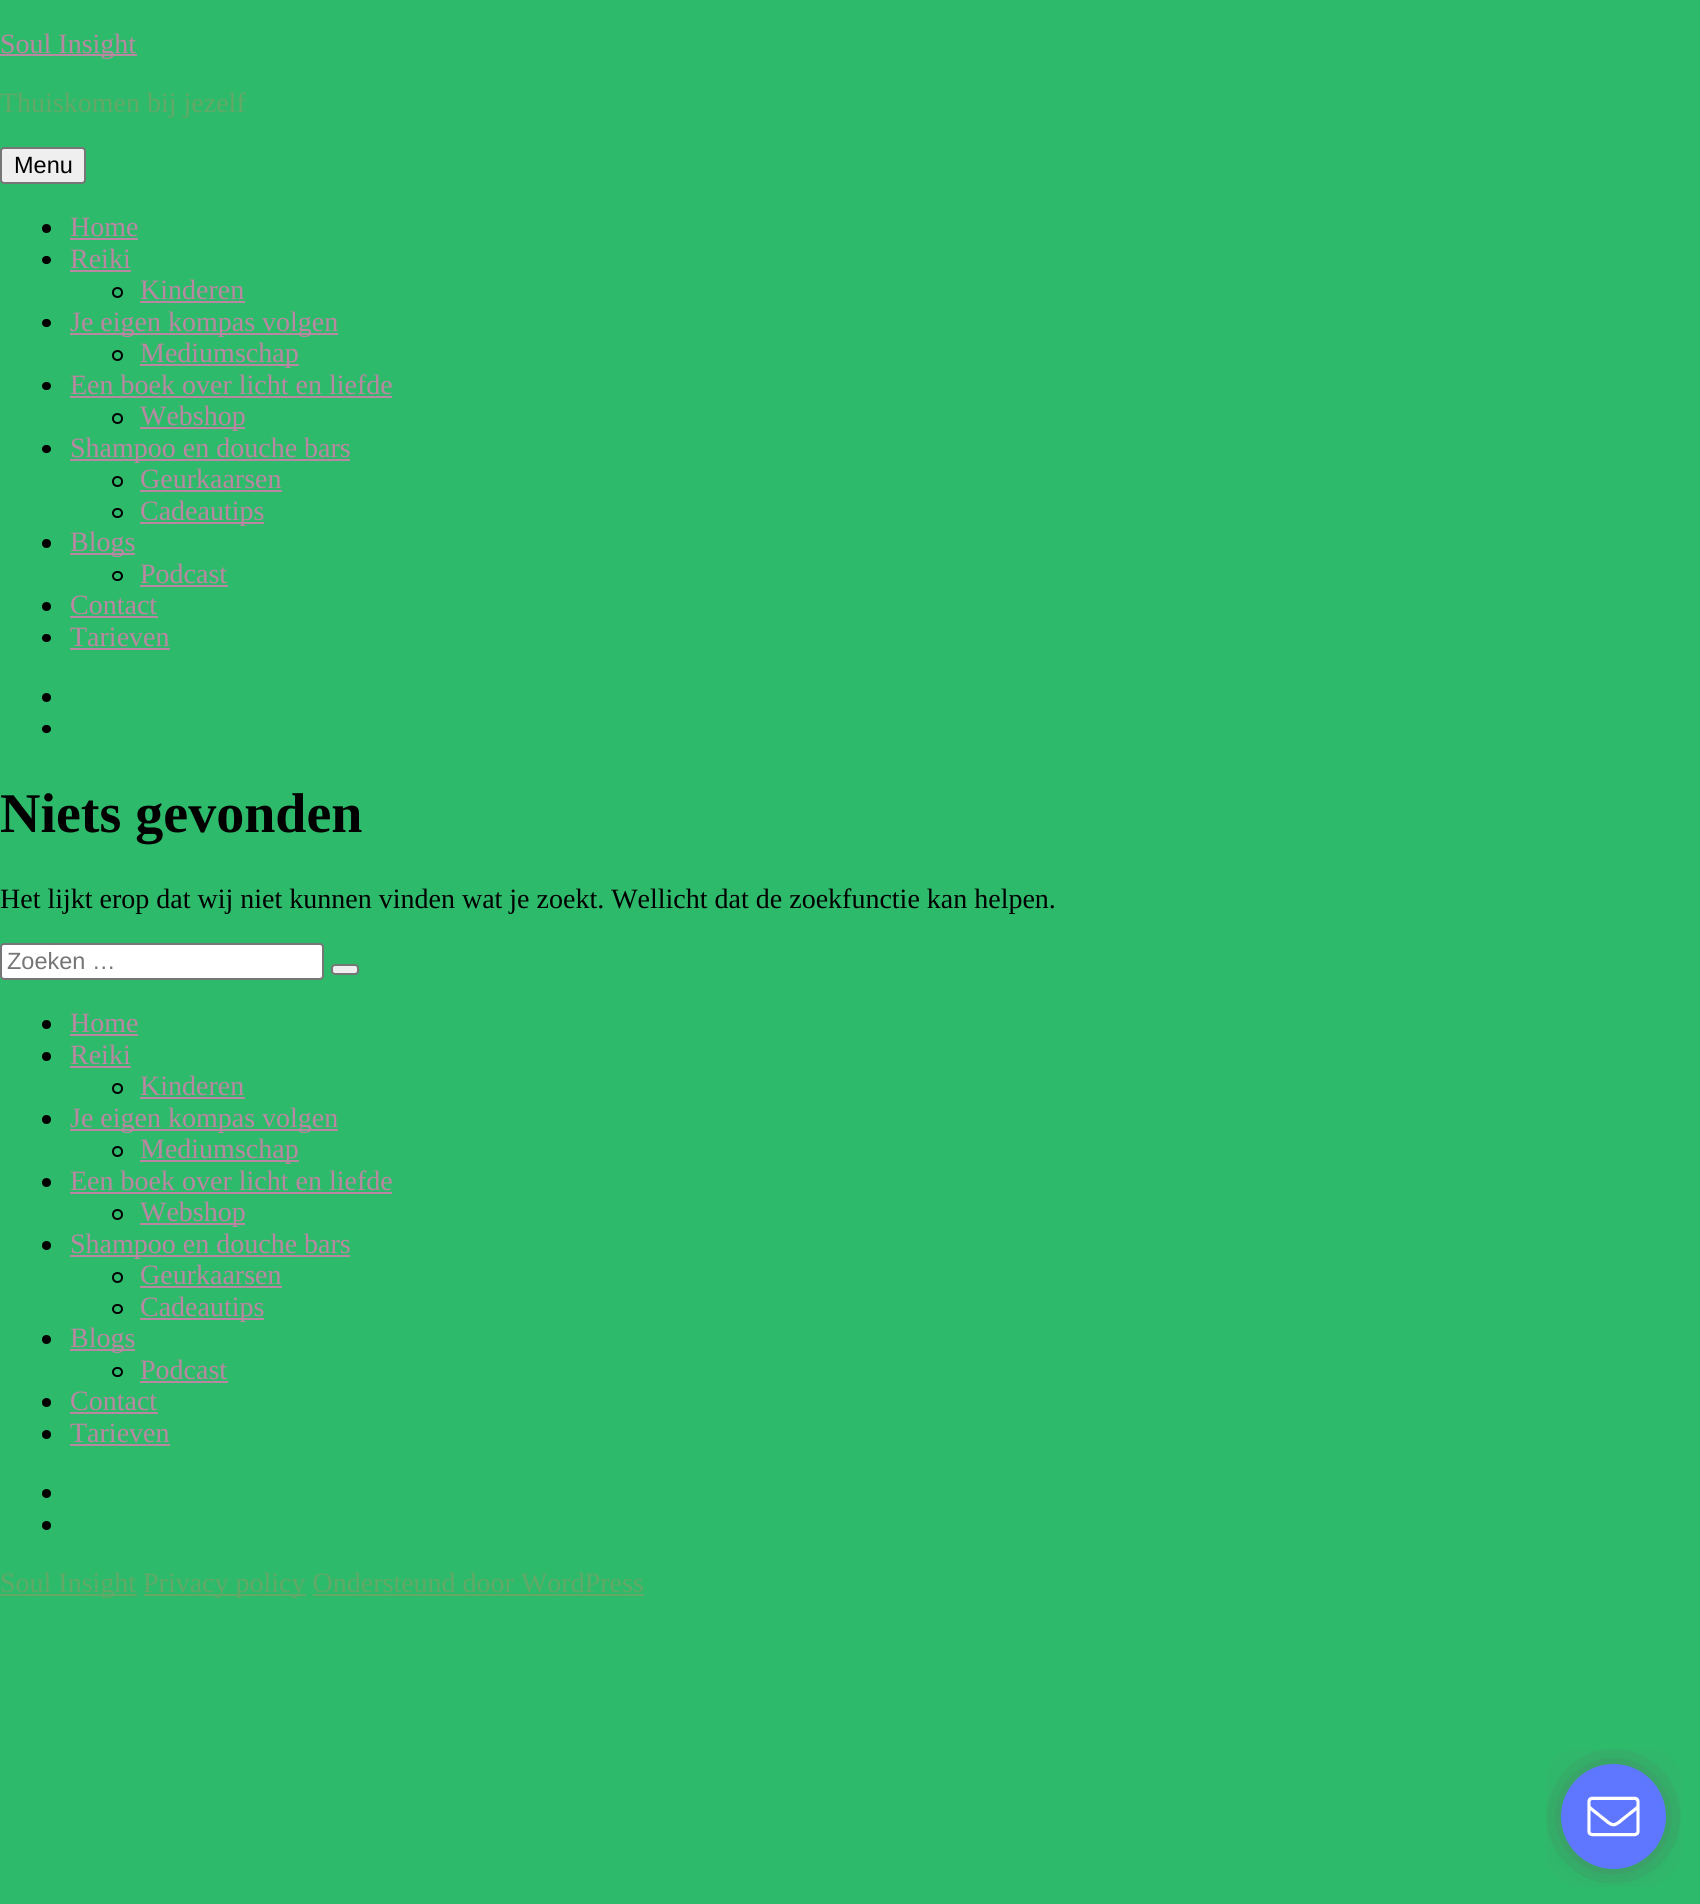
import math
import cairo

surface = cairo.ImageSurface(cairo.FORMAT_RGB24, 1700, 1904)
ctx = cairo.Context(surface)
options = cairo.FontOptions()
options.set_hint_metrics(cairo.HINT_METRICS_OFF)
options.set_hint_style(cairo.HINT_STYLE_NONE)
ctx.set_font_options(options)
ctx.set_miter_limit(4)


def round_rect(x, y, w, h, r):
    ctx.new_sub_path()
    for i, (u, v) in enumerate([(x + w - r, y + h - r), (x + r, y + h - r), (x + r, y + r), (x + w - r, y + r)]):
        ctx.arc(u, v, r, i * math.pi / 2, (i + 1) * math.pi / 2)
    ctx.close_path()


def picture(path, x, y, w, h):
    ctx.save()
    ctx.set_source_surface(cairo.ImageSurface.create_from_png(path), x, y)
    ctx.rectangle(x, y, w, h)
    ctx.fill()
    ctx.restore()


ctx.set_source_rgb(0.18, 0.729, 0.42)
ctx.paint()
ctx.set_source_rgb(0.729, 0.529, 0.635)
ctx.rectangle(0, 54, 137, 2)
ctx.fill()
ctx.select_font_face("Liberation Serif")
ctx.set_font_size(28)
ctx.move_to(0, 53)
ctx.show_text("Soul Insight")
ctx.set_source_rgb(0.388, 0.659, 0.4)
ctx.move_to(0, 112)
ctx.show_text("Thuiskomen bij jezelf")
ctx.set_source_rgb(0.937, 0.937, 0.937)
round_rect(1, 148, 84, 35, 3)
ctx.fill_preserve()
ctx.set_source_rgb(0.463, 0.463, 0.463)
ctx.stroke()
ctx.select_font_face("Liberation Sans")
ctx.set_font_size(23.5)
ctx.set_source_rgb(0, 0, 0)
ctx.move_to(14, 173)
ctx.show_text("Menu")
ctx.new_path()
ctx.arc(46.5, 228.5, 4.5, 0, 2 * math.pi)
ctx.fill()
ctx.select_font_face("Liberation Serif")
ctx.set_font_size(28)
ctx.set_source_rgb(0.729, 0.529, 0.635)
ctx.move_to(70, 236)
ctx.show_text("Home")
ctx.rectangle(70, 238, 68, 2)
ctx.fill()
ctx.set_source_rgb(0, 0, 0)
round_rect(42, 256, 9, 8, 4)
ctx.fill()
ctx.set_source_rgb(0.729, 0.529, 0.635)
ctx.move_to(70, 268)
ctx.show_text("Reiki")
ctx.rectangle(70, 270, 61, 2)
ctx.fill()
ctx.arc(117.5, 292.5, 4.5, 0, 2 * math.pi)
ctx.set_source_rgb(0, 0, 0)
ctx.stroke()
ctx.set_source_rgb(0.729, 0.529, 0.635)
ctx.move_to(140, 299)
ctx.show_text("Kinderen")
ctx.rectangle(140, 301, 105, 2)
ctx.fill()
ctx.set_source_rgb(0, 0, 0)
round_rect(42, 319, 9, 8, 4)
ctx.fill()
ctx.set_source_rgb(0.729, 0.529, 0.635)
ctx.rectangle(70, 333, 268, 2)
ctx.fill()
ctx.move_to(70, 331)
ctx.show_text("Je eigen kompas volgen")
ctx.new_path()
ctx.arc(117.5, 355.5, 4.5, 0, 2 * math.pi)
ctx.set_source_rgb(0, 0, 0)
ctx.stroke()
ctx.set_source_rgb(0.729, 0.529, 0.635)
ctx.rectangle(140, 364, 159, 2)
ctx.fill()
ctx.move_to(140, 362)
ctx.show_text("Mediumschap")
ctx.set_source_rgb(0, 0, 0)
round_rect(42, 382, 9, 8, 4)
ctx.fill()
ctx.set_source_rgb(0.729, 0.529, 0.635)
ctx.move_to(70, 394)
ctx.show_text("Een boek over licht en liefde")
ctx.rectangle(70, 396, 322, 2)
ctx.fill()
ctx.arc(117.5, 418.5, 4.5, 0, 2 * math.pi)
ctx.set_source_rgb(0, 0, 0)
ctx.stroke()
ctx.set_source_rgb(0.729, 0.529, 0.635)
ctx.rectangle(140, 427, 105, 2)
ctx.fill()
ctx.move_to(140, 425)
ctx.show_text("Webshop")
ctx.set_source_rgb(0, 0, 0)
round_rect(42, 445, 9, 8, 4)
ctx.fill()
ctx.set_source_rgb(0.729, 0.529, 0.635)
ctx.rectangle(70, 459, 280, 2)
ctx.fill()
ctx.move_to(70, 457)
ctx.show_text("Shampoo en douche bars")
ctx.new_path()
ctx.arc(117.5, 481.5, 4.5, 0, 2 * math.pi)
ctx.set_source_rgb(0, 0, 0)
ctx.stroke()
ctx.set_source_rgb(0.729, 0.529, 0.635)
ctx.move_to(140, 488)
ctx.show_text("Geurkaarsen")
ctx.rectangle(140, 490, 142, 2)
ctx.fill()
round_rect(113, 509, 9, 8, 4)
ctx.set_source_rgb(0, 0, 0)
ctx.stroke()
ctx.set_source_rgb(0.729, 0.529, 0.635)
ctx.rectangle(140, 522, 124, 2)
ctx.fill()
ctx.move_to(140, 520)
ctx.show_text("Cadeautips")
ctx.set_source_rgb(0, 0, 0)
ctx.new_path()
ctx.arc(46.5, 543.5, 4.5, 0, 2 * math.pi)
ctx.fill()
ctx.set_source_rgb(0.729, 0.529, 0.635)
ctx.rectangle(70, 553, 65, 2)
ctx.fill()
ctx.move_to(70, 551)
ctx.show_text("Blogs")
round_rect(113, 572, 9, 8, 4)
ctx.set_source_rgb(0, 0, 0)
ctx.stroke()
ctx.set_source_rgb(0.729, 0.529, 0.635)
ctx.move_to(140, 583)
ctx.show_text("Podcast")
ctx.rectangle(140, 585, 88, 2)
ctx.fill()
ctx.set_source_rgb(0, 0, 0)
ctx.arc(46.5, 606.5, 4.5, 0, 2 * math.pi)
ctx.fill()
ctx.set_source_rgb(0.729, 0.529, 0.635)
ctx.move_to(70, 614)
ctx.show_text("Contact")
ctx.rectangle(70, 616, 88, 2)
ctx.fill()
ctx.set_source_rgb(0, 0, 0)
round_rect(42, 634, 9, 8, 4)
ctx.fill()
ctx.set_source_rgb(0.729, 0.529, 0.635)
ctx.move_to(70, 646)
ctx.show_text("Tarieven")
ctx.rectangle(70, 648, 100, 2)
ctx.fill()
ctx.set_source_rgb(0, 0, 0)
ctx.arc(46.5, 697.5, 4.5, 0, 2 * math.pi)
ctx.fill()
round_rect(42, 725, 9, 8, 4)
ctx.fill()
ctx.select_font_face("Liberation Serif", cairo.FONT_SLANT_NORMAL, cairo.FONT_WEIGHT_BOLD)
ctx.set_font_size(56)
ctx.move_to(0, 832)
ctx.show_text("Niets gevonden")
ctx.select_font_face("Liberation Serif")
ctx.set_font_size(28)
ctx.move_to(0, 908)
ctx.show_text("Het lijkt erop dat wij niet kunnen vinden wat je zoekt. Wellicht dat de zoekfunctie kan helpen.")
ctx.set_source_rgb(1, 1, 1)
round_rect(1, 944, 322, 35, 3)
ctx.fill_preserve()
ctx.set_source_rgb(0.463, 0.463, 0.463)
ctx.stroke()
ctx.select_font_face("Liberation Sans")
ctx.set_font_size(23.5)
ctx.set_source_rgb(0.459, 0.459, 0.459)
ctx.move_to(7, 969)
ctx.show_text("Zoeken …")
ctx.set_source_rgb(0.937, 0.937, 0.937)
round_rect(332, 965, 26, 9, 3)
ctx.fill_preserve()
ctx.set_source_rgb(0.463, 0.463, 0.463)
ctx.stroke()
ctx.set_source_rgb(0, 0, 0)
ctx.arc(46.5, 1024.5, 4.5, 0, 2 * math.pi)
ctx.fill()
ctx.select_font_face("Liberation Serif")
ctx.set_font_size(28)
ctx.set_source_rgb(0.729, 0.529, 0.635)
ctx.move_to(70, 1032)
ctx.show_text("Home")
ctx.rectangle(70, 1034, 68, 2)
ctx.fill()
ctx.set_source_rgb(0, 0, 0)
ctx.arc(46.5, 1056.5, 4.5, 0, 2 * math.pi)
ctx.fill()
ctx.set_source_rgb(0.729, 0.529, 0.635)
ctx.move_to(70, 1064)
ctx.show_text("Reiki")
ctx.rectangle(70, 1066, 61, 2)
ctx.fill()
ctx.arc(117.5, 1088.5, 4.5, 0, 2 * math.pi)
ctx.set_source_rgb(0, 0, 0)
ctx.stroke()
ctx.set_source_rgb(0.729, 0.529, 0.635)
ctx.move_to(140, 1095)
ctx.show_text("Kinderen")
ctx.rectangle(140, 1097, 105, 2)
ctx.fill()
ctx.set_source_rgb(0, 0, 0)
ctx.arc(46.5, 1119.5, 4.5, 0, 2 * math.pi)
ctx.fill()
ctx.set_source_rgb(0.729, 0.529, 0.635)
ctx.rectangle(70, 1129, 268, 2)
ctx.fill()
ctx.move_to(70, 1127)
ctx.show_text("Je eigen kompas volgen")
ctx.new_path()
ctx.arc(117.5, 1151.5, 4.5, 0, 2 * math.pi)
ctx.set_source_rgb(0, 0, 0)
ctx.stroke()
ctx.set_source_rgb(0.729, 0.529, 0.635)
ctx.rectangle(140, 1160, 159, 2)
ctx.fill()
ctx.move_to(140, 1158)
ctx.show_text("Mediumschap")
ctx.set_source_rgb(0, 0, 0)
ctx.new_path()
ctx.arc(46.5, 1182.5, 4.5, 0, 2 * math.pi)
ctx.fill()
ctx.set_source_rgb(0.729, 0.529, 0.635)
ctx.move_to(70, 1190)
ctx.show_text("Een boek over licht en liefde")
ctx.rectangle(70, 1192, 322, 2)
ctx.fill()
ctx.arc(117.5, 1214.5, 4.5, 0, 2 * math.pi)
ctx.set_source_rgb(0, 0, 0)
ctx.stroke()
ctx.set_source_rgb(0.729, 0.529, 0.635)
ctx.rectangle(140, 1223, 105, 2)
ctx.fill()
ctx.move_to(140, 1221)
ctx.show_text("Webshop")
ctx.set_source_rgb(0, 0, 0)
ctx.new_path()
ctx.arc(46.5, 1245.5, 4.5, 0, 2 * math.pi)
ctx.fill()
ctx.set_source_rgb(0.729, 0.529, 0.635)
ctx.rectangle(70, 1255, 280, 2)
ctx.fill()
ctx.move_to(70, 1253)
ctx.show_text("Shampoo en douche bars")
ctx.new_path()
ctx.arc(117.5, 1277.5, 4.5, 0, 2 * math.pi)
ctx.set_source_rgb(0, 0, 0)
ctx.stroke()
ctx.set_source_rgb(0.729, 0.529, 0.635)
ctx.move_to(140, 1284)
ctx.show_text("Geurkaarsen")
ctx.rectangle(140, 1286, 142, 2)
ctx.fill()
round_rect(113, 1305, 9, 8, 4)
ctx.set_source_rgb(0, 0, 0)
ctx.stroke()
ctx.set_source_rgb(0.729, 0.529, 0.635)
ctx.rectangle(140, 1318, 124, 2)
ctx.fill()
ctx.move_to(140, 1316)
ctx.show_text("Cadeautips")
ctx.set_source_rgb(0, 0, 0)
ctx.new_path()
ctx.arc(46.5, 1339.5, 4.5, 0, 2 * math.pi)
ctx.fill()
ctx.set_source_rgb(0.729, 0.529, 0.635)
ctx.rectangle(70, 1349, 65, 2)
ctx.fill()
ctx.move_to(70, 1347)
ctx.show_text("Blogs")
round_rect(113, 1368, 9, 8, 4)
ctx.set_source_rgb(0, 0, 0)
ctx.stroke()
ctx.set_source_rgb(0.729, 0.529, 0.635)
ctx.move_to(140, 1379)
ctx.show_text("Podcast")
ctx.rectangle(140, 1381, 88, 2)
ctx.fill()
ctx.set_source_rgb(0, 0, 0)
ctx.arc(46.5, 1402.5, 4.5, 0, 2 * math.pi)
ctx.fill()
ctx.set_source_rgb(0.729, 0.529, 0.635)
ctx.move_to(70, 1410)
ctx.show_text("Contact")
ctx.rectangle(70, 1412, 88, 2)
ctx.fill()
ctx.set_source_rgb(0, 0, 0)
ctx.arc(46.5, 1434.5, 4.5, 0, 2 * math.pi)
ctx.fill()
ctx.set_source_rgb(0.729, 0.529, 0.635)
ctx.move_to(70, 1442)
ctx.show_text("Tarieven")
ctx.rectangle(70, 1444, 100, 2)
ctx.fill()
ctx.set_source_rgb(0, 0, 0)
ctx.arc(46.5, 1493.5, 4.5, 0, 2 * math.pi)
ctx.fill()
ctx.arc(46.5, 1525.5, 4.5, 0, 2 * math.pi)
ctx.fill()
ctx.set_source_rgb(0.388, 0.659, 0.4)
ctx.rectangle(0, 1594, 137, 2)
ctx.fill()
ctx.move_to(0, 1592)
ctx.show_text("Soul Insight")
ctx.rectangle(144, 1594, 162, 2)
ctx.fill()
ctx.move_to(143, 1592)
ctx.show_text("Privacy policy Ondersteund door WordPress")
ctx.rectangle(313, 1594, 331, 2)
ctx.fill()
picture("img1.png", 1546, 1749, 135, 138)
surface.write_to_png("page.png")
